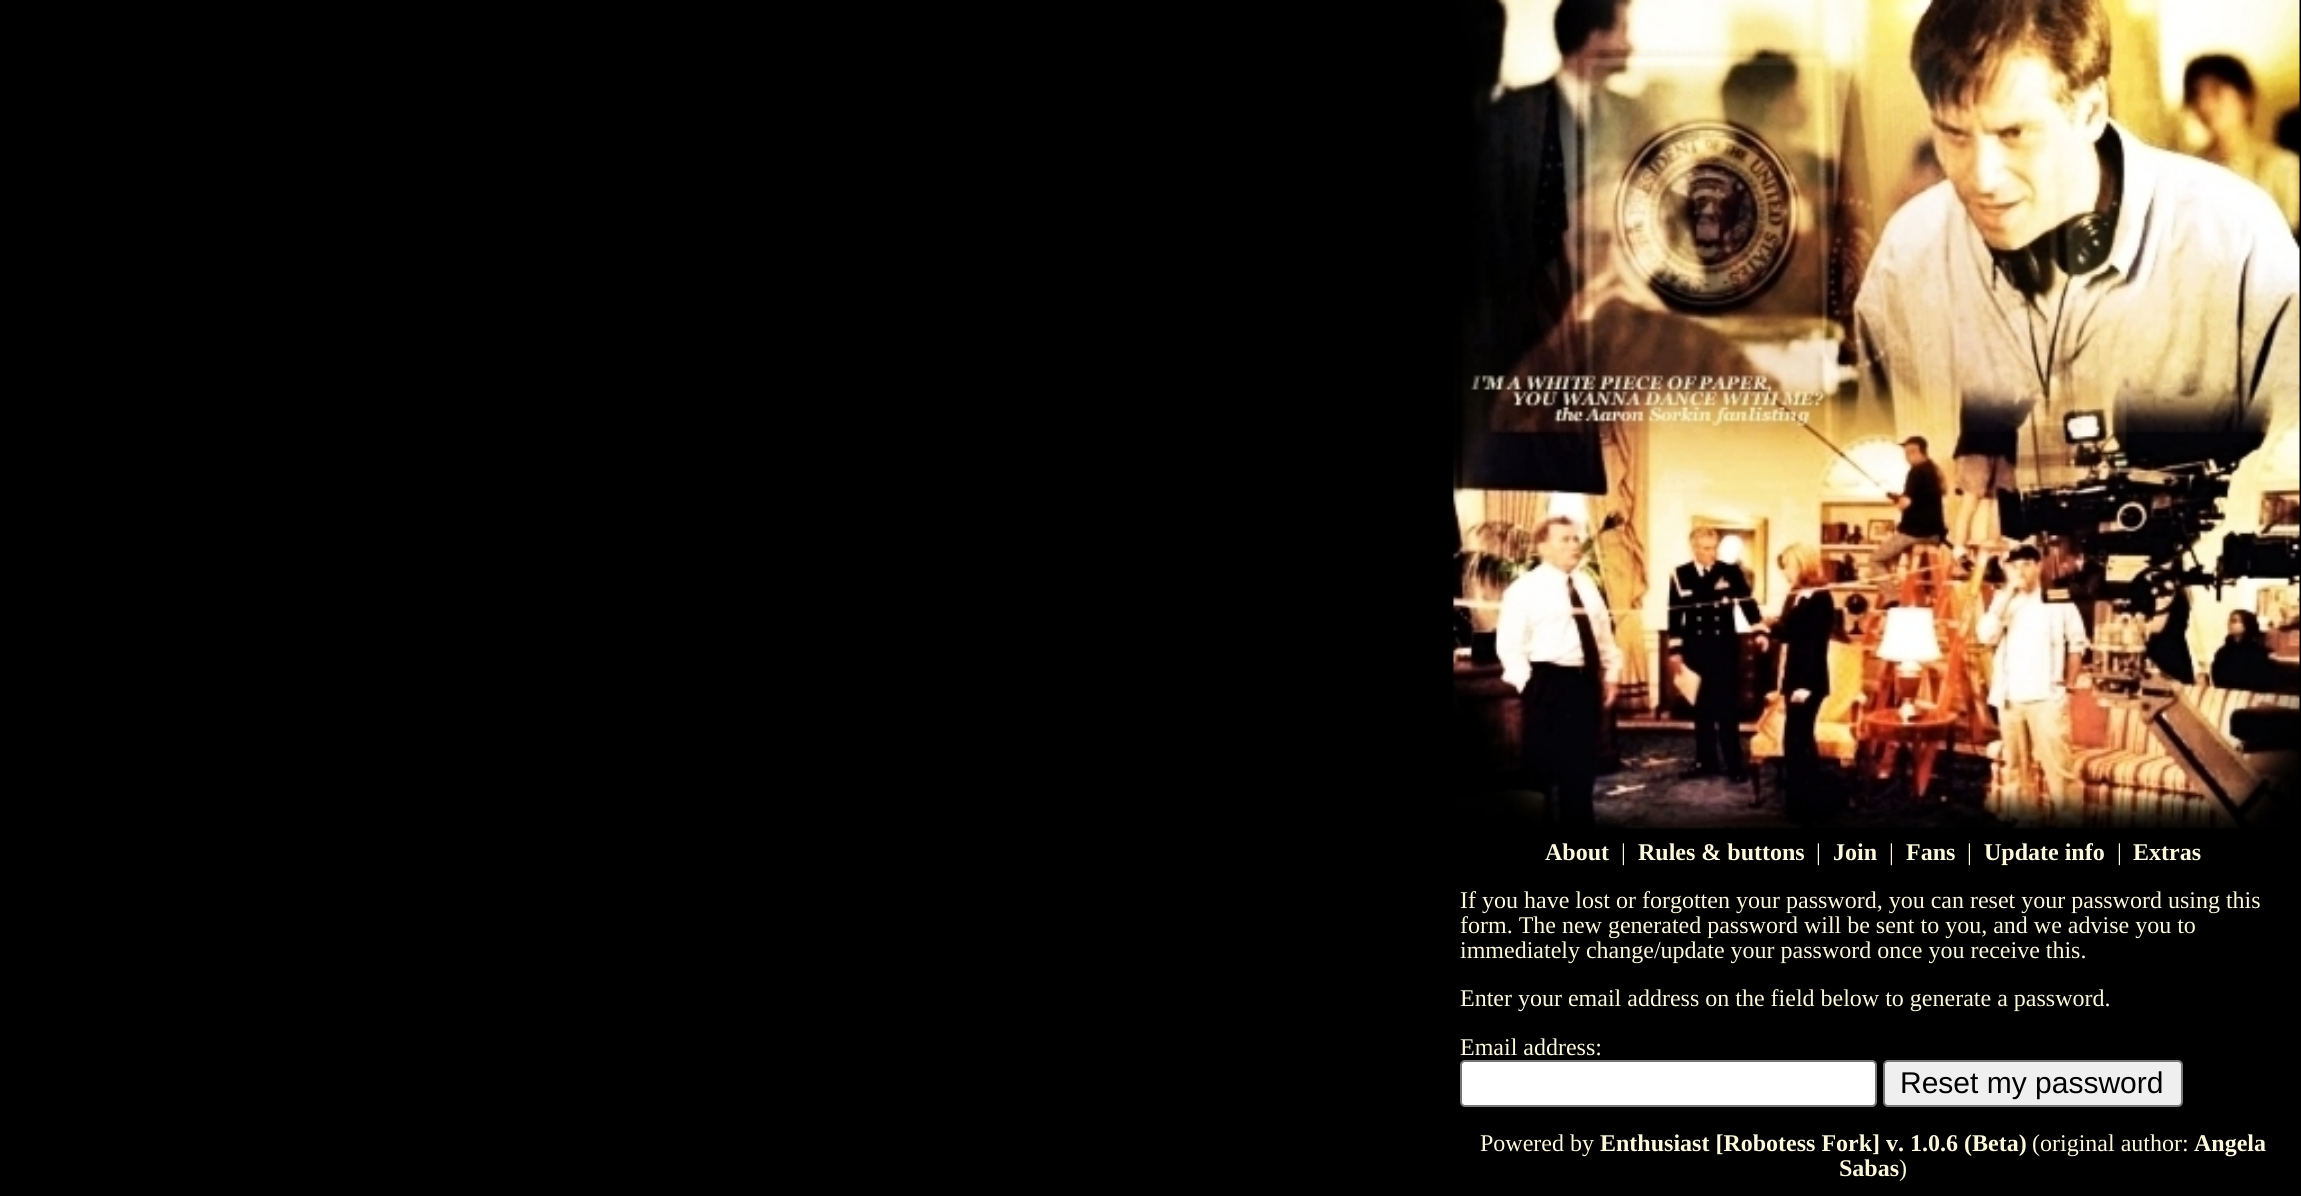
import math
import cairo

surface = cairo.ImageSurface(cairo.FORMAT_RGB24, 2301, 1196)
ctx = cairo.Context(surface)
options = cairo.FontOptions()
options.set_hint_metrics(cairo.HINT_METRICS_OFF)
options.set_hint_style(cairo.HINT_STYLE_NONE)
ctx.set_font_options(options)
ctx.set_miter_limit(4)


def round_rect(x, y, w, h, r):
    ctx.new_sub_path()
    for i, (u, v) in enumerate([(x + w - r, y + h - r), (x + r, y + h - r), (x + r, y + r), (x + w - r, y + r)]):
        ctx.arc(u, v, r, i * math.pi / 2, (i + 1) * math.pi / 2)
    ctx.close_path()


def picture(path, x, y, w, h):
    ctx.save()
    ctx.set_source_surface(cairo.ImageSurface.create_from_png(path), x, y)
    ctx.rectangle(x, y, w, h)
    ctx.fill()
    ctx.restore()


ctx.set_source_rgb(0, 0, 0)
ctx.paint()
picture("img1.png", 1450, 0, 850, 829)
ctx.select_font_face("Liberation Serif", cairo.FONT_SLANT_NORMAL, cairo.FONT_WEIGHT_BOLD)
ctx.set_font_size(24)
ctx.set_source_rgb(0.996, 0.976, 0.863)
ctx.move_to(1545, 860)
ctx.show_text("About")
ctx.select_font_face("Liberation Serif")
ctx.move_to(1621, 860)
ctx.show_text("|")
ctx.select_font_face("Liberation Serif", cairo.FONT_SLANT_NORMAL, cairo.FONT_WEIGHT_BOLD)
ctx.move_to(1638, 860)
ctx.show_text("Rules & buttons")
ctx.select_font_face("Liberation Serif")
ctx.move_to(1816, 860)
ctx.show_text("|")
ctx.select_font_face("Liberation Serif", cairo.FONT_SLANT_NORMAL, cairo.FONT_WEIGHT_BOLD)
ctx.move_to(1833, 860)
ctx.show_text("Join")
ctx.select_font_face("Liberation Serif")
ctx.move_to(1889, 860)
ctx.show_text("|")
ctx.select_font_face("Liberation Serif", cairo.FONT_SLANT_NORMAL, cairo.FONT_WEIGHT_BOLD)
ctx.move_to(1906, 860)
ctx.show_text("Fans")
ctx.select_font_face("Liberation Serif")
ctx.move_to(1967, 860)
ctx.show_text("|")
ctx.select_font_face("Liberation Serif", cairo.FONT_SLANT_NORMAL, cairo.FONT_WEIGHT_BOLD)
ctx.move_to(1984, 860)
ctx.show_text("Update info")
ctx.select_font_face("Liberation Serif")
ctx.move_to(2117, 860)
ctx.show_text("|")
ctx.select_font_face("Liberation Serif", cairo.FONT_SLANT_NORMAL, cairo.FONT_WEIGHT_BOLD)
ctx.move_to(2133, 860)
ctx.show_text("Extras")
ctx.select_font_face("Liberation Serif")
ctx.move_to(1460, 908)
ctx.show_text("If you have lost or forgotten your")
ctx.move_to(1786, 908)
ctx.show_text("password, you can reset your password using this")
ctx.move_to(1460, 933)
ctx.show_text("form. The new generated password will be sent to you, and we advise you to")
ctx.move_to(1460, 958)
ctx.show_text("immediately change/update your password once you receive this.")
ctx.move_to(1460, 1006)
ctx.show_text("Enter your email address on the field below to generate a password.")
ctx.move_to(1460, 1055)
ctx.show_text("Email address:")
ctx.set_source_rgb(1, 1, 1)
round_rect(1461, 1061, 415, 45, 4)
ctx.fill_preserve()
ctx.set_source_rgb(0.463, 0.463, 0.463)
ctx.stroke()
ctx.set_source_rgb(0.937, 0.937, 0.937)
round_rect(1884, 1061, 298, 45, 4)
ctx.fill_preserve()
ctx.set_source_rgb(0.463, 0.463, 0.463)
ctx.stroke()
ctx.select_font_face("Liberation Sans")
ctx.set_font_size(30)
ctx.set_source_rgb(0, 0, 0)
ctx.move_to(1900, 1093)
ctx.show_text("Reset my password")
ctx.select_font_face("Liberation Serif")
ctx.set_font_size(24)
ctx.set_source_rgb(0.996, 0.976, 0.863)
ctx.move_to(1480, 1151)
ctx.show_text("Powered by")
ctx.select_font_face("Liberation Serif", cairo.FONT_SLANT_NORMAL, cairo.FONT_WEIGHT_BOLD)
ctx.move_to(1600, 1151)
ctx.show_text("Enthusiast [Robotess Fork] v. 1.0.6 (Beta)")
ctx.select_font_face("Liberation Serif")
ctx.move_to(2032, 1151)
ctx.show_text("(original author:")
ctx.select_font_face("Liberation Serif", cairo.FONT_SLANT_NORMAL, cairo.FONT_WEIGHT_BOLD)
ctx.move_to(2194, 1151)
ctx.show_text("Angela")
ctx.move_to(1839, 1176)
ctx.show_text("Sabas")
ctx.select_font_face("Liberation Serif")
ctx.move_to(1899, 1176)
ctx.show_text(")")
surface.write_to_png("page.png")
